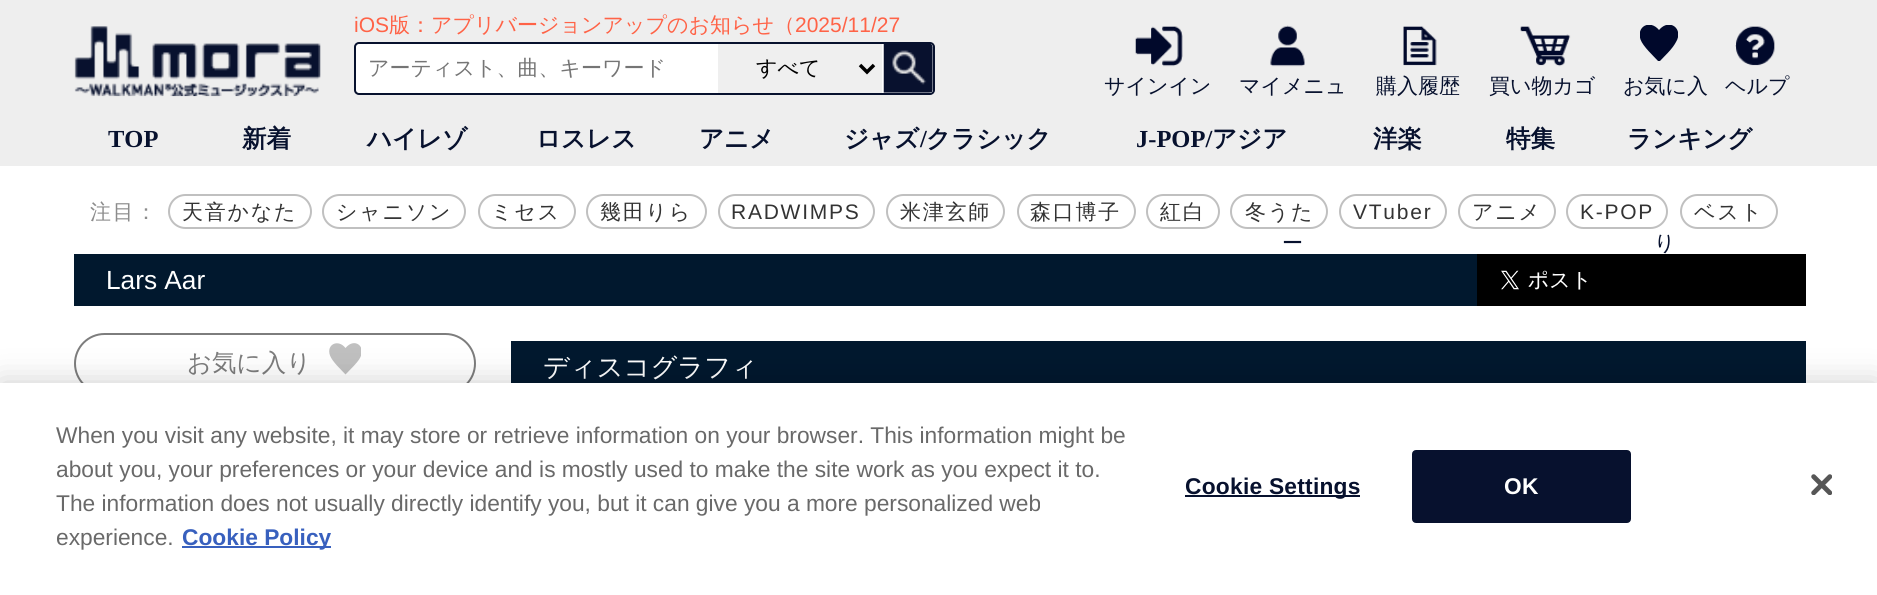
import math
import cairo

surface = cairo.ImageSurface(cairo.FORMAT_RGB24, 1877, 595)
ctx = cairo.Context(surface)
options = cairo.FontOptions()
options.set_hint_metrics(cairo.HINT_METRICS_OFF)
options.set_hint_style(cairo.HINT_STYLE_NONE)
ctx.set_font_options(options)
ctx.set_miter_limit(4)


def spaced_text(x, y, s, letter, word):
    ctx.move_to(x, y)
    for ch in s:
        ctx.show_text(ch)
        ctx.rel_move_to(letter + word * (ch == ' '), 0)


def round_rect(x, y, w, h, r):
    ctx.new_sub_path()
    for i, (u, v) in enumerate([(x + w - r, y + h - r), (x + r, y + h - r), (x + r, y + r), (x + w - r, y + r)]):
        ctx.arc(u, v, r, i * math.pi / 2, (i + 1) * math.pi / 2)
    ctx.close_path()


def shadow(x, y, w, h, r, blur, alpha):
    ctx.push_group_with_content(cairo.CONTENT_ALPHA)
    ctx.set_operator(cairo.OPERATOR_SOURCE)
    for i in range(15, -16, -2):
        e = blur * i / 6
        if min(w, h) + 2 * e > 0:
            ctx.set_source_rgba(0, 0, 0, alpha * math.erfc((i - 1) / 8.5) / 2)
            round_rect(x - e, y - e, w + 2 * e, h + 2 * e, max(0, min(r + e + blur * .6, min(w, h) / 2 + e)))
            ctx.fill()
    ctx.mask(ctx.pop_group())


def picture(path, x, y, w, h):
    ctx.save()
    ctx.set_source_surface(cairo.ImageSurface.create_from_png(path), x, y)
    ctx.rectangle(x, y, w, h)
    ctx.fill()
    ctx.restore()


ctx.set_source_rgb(1, 1, 1)
ctx.paint()
ctx.set_source_rgb(0.933, 0.933, 0.933)
ctx.rectangle(0, 0, 1877, 166)
ctx.fill()
picture("img1.png", 74, 26, 247, 71)
ctx.select_font_face("Liberation Sans")
ctx.set_font_size(21)
ctx.set_source_rgb(1, 0.388, 0.278)
ctx.move_to(354, 32)
ctx.show_text("iOS")
ctx.save()
ctx.rectangle(355, 0, 559, 35)
ctx.clip()
ctx.select_font_face("WenQuanYi Zen Hei Medium")
ctx.move_to(389, 32)
ctx.show_text("版：アプリバージョンアップのお知らせ（")
ctx.restore()
ctx.move_to(795, 32)
ctx.show_text("2025/11/27")
ctx.set_source_rgb(1, 1, 1)
round_rect(355, 43, 579, 51, 4)
ctx.fill_preserve()
ctx.set_source_rgb(0.031, 0.067, 0.18)
ctx.stroke()
ctx.select_font_face("WenQuanYi Zen Hei Medium")
ctx.set_source_rgb(0.459, 0.459, 0.459)
ctx.move_to(368, 75)
ctx.show_text("アーティスト、曲、キーワード")
ctx.set_source_rgb(0.937, 0.937, 0.937)
ctx.rectangle(718, 44, 164, 49)
ctx.fill()
ctx.new_path()
ctx.move_to(860, 65)
ctx.line_to(867, 72)
ctx.line_to(874, 65)
ctx.set_source_rgb(0, 0, 0)
ctx.set_line_width(3.5)
ctx.stroke()
ctx.move_to(756, 75)
ctx.show_text("すべて")
picture("img2.png", 883, 44, 50, 49)
picture("img3.png", 1135, 26, 48, 41)
ctx.set_source_rgb(0.031, 0.067, 0.18)
ctx.move_to(1104, 93)
ctx.show_text("サインイン")
picture("img4.png", 1270, 25, 35, 42)
ctx.move_to(1239, 93)
ctx.show_text("マイメニュ")
ctx.move_to(1282, 250)
ctx.show_text("ー")
picture("img5.png", 1403, 26, 34, 40)
ctx.move_to(1376, 93)
ctx.show_text("購入履歴")
picture("img6.png", 1520, 26, 51, 41)
ctx.move_to(1489, 93)
ctx.show_text("買い物カゴ")
ctx.save()
ctx.rectangle(1640, 25, 38, 36)
ctx.clip()
ctx.set_source_rgb(0, 0.035, 0.169)
ctx.new_path()
ctx.move_to(1676, 42)
ctx.curve_to(1672, 49.5, 1665, 55.5, 1659, 62)
ctx.curve_to(1653.5, 56, 1643, 46.5, 1640.5, 39.5)
ctx.curve_to(1636, 26.5, 1650, 19, 1659, 30)
ctx.curve_to(1669.5, 17.5, 1684, 29, 1676, 42)
ctx.close_path()
ctx.fill()
ctx.restore()
ctx.move_to(1623, 93)
ctx.show_text("お気に入")
ctx.move_to(1654, 250)
ctx.show_text("り")
picture("img7.png", 1735, 26, 40, 40)
ctx.move_to(1725, 93)
ctx.show_text("ヘルプ")
ctx.select_font_face("Liberation Serif", cairo.FONT_SLANT_NORMAL, cairo.FONT_WEIGHT_BOLD)
ctx.set_font_size(24.5)
ctx.move_to(108, 147)
ctx.show_text("TOP")
ctx.select_font_face("WenQuanYi Zen Hei", cairo.FONT_SLANT_NORMAL, cairo.FONT_WEIGHT_BOLD)
ctx.move_to(242, 147)
ctx.show_text("新着")
ctx.move_to(367, 147)
ctx.show_text("ハイレゾ")
ctx.move_to(536, 147)
ctx.show_text("ロスレス")
ctx.move_to(699, 147)
ctx.show_text("アニメ")
ctx.move_to(844, 147)
ctx.show_text("ジャズ")
ctx.select_font_face("Liberation Serif", cairo.FONT_SLANT_NORMAL, cairo.FONT_WEIGHT_BOLD)
ctx.move_to(920, 147)
ctx.show_text("/")
ctx.select_font_face("WenQuanYi Zen Hei", cairo.FONT_SLANT_NORMAL, cairo.FONT_WEIGHT_BOLD)
ctx.move_to(926, 147)
ctx.show_text("クラシック")
ctx.select_font_face("Liberation Serif", cairo.FONT_SLANT_NORMAL, cairo.FONT_WEIGHT_BOLD)
ctx.move_to(1136, 147)
ctx.show_text("J-POP/")
ctx.select_font_face("WenQuanYi Zen Hei", cairo.FONT_SLANT_NORMAL, cairo.FONT_WEIGHT_BOLD)
ctx.move_to(1212, 147)
ctx.show_text("アジア")
ctx.move_to(1373, 147)
ctx.show_text("洋楽")
ctx.move_to(1506, 147)
ctx.show_text("特集")
ctx.move_to(1627, 147)
ctx.show_text("ランキング")
ctx.select_font_face("WenQuanYi Zen Hei Medium")
ctx.set_font_size(21)
ctx.set_source_rgb(0.549, 0.549, 0.549)
spaced_text(90, 219, "注目：", 1.75, 0)
round_rect(169, 195, 142, 33, 16.5)
ctx.set_source_rgb(0.753, 0.753, 0.753)
ctx.set_line_width(2)
ctx.stroke()
ctx.set_source_rgb(0.2, 0.2, 0.2)
spaced_text(182, 219, "天音かなた", 1.75, 0)
round_rect(323, 195, 142, 33, 16.5)
ctx.set_source_rgb(0.753, 0.753, 0.753)
ctx.stroke()
ctx.set_source_rgb(0.2, 0.2, 0.2)
spaced_text(336, 219, "シャニソン", 1.75, 0)
round_rect(479, 195, 96, 33, 16.5)
ctx.set_source_rgb(0.753, 0.753, 0.753)
ctx.stroke()
ctx.set_source_rgb(0.2, 0.2, 0.2)
spaced_text(491, 219, "ミセス", 1.75, 0)
round_rect(587, 195, 119, 33, 16.5)
ctx.set_source_rgb(0.753, 0.753, 0.753)
ctx.stroke()
ctx.set_source_rgb(0.2, 0.2, 0.2)
spaced_text(600, 219, "幾田りら", 1.75, 0)
round_rect(719, 195, 155, 33, 16.5)
ctx.set_source_rgb(0.753, 0.753, 0.753)
ctx.stroke()
ctx.select_font_face("Liberation Sans")
ctx.set_source_rgb(0.2, 0.2, 0.2)
spaced_text(731, 219, "RADWIMPS", 1.75, 0)
round_rect(887, 195, 117, 33, 16.5)
ctx.set_source_rgb(0.753, 0.753, 0.753)
ctx.stroke()
ctx.select_font_face("WenQuanYi Zen Hei Medium")
ctx.set_source_rgb(0.2, 0.2, 0.2)
spaced_text(900, 219, "米津玄師", 1.75, 0)
round_rect(1018, 195, 117, 33, 16.5)
ctx.set_source_rgb(0.753, 0.753, 0.753)
ctx.stroke()
ctx.set_source_rgb(0.2, 0.2, 0.2)
spaced_text(1030, 219, "森口博子", 1.75, 0)
round_rect(1147, 195, 72, 33, 16.5)
ctx.set_source_rgb(0.753, 0.753, 0.753)
ctx.stroke()
ctx.set_source_rgb(0.2, 0.2, 0.2)
spaced_text(1160, 219, "紅白", 1.75, 0)
round_rect(1231, 195, 96, 33, 16.5)
ctx.set_source_rgb(0.753, 0.753, 0.753)
ctx.stroke()
ctx.set_source_rgb(0.2, 0.2, 0.2)
spaced_text(1245, 219, "冬うた", 1.75, 0)
round_rect(1340, 195, 106, 33, 16.5)
ctx.set_source_rgb(0.753, 0.753, 0.753)
ctx.stroke()
ctx.select_font_face("Liberation Sans")
ctx.set_source_rgb(0.2, 0.2, 0.2)
spaced_text(1353, 219, "VTuber", 1.75, 0)
round_rect(1459, 195, 96, 33, 16.5)
ctx.set_source_rgb(0.753, 0.753, 0.753)
ctx.stroke()
ctx.select_font_face("WenQuanYi Zen Hei Medium")
ctx.set_source_rgb(0.2, 0.2, 0.2)
spaced_text(1472, 219, "アニメ", 1.75, 0)
round_rect(1567, 195, 100, 33, 16.5)
ctx.set_source_rgb(0.753, 0.753, 0.753)
ctx.stroke()
ctx.select_font_face("Liberation Sans")
ctx.set_source_rgb(0.2, 0.2, 0.2)
spaced_text(1580, 219, "K-POP", 1.75, 0)
round_rect(1681, 195, 96, 33, 16.5)
ctx.set_source_rgb(0.753, 0.753, 0.753)
ctx.stroke()
ctx.select_font_face("WenQuanYi Zen Hei Medium")
ctx.set_source_rgb(0.2, 0.2, 0.2)
spaced_text(1694, 219, "ベスト", 1.75, 0)
ctx.set_source_rgb(0, 0, 0)
ctx.rectangle(1477, 254, 329, 52)
ctx.fill()
ctx.set_source_rgb(0.004, 0.094, 0.18)
ctx.rectangle(74, 254, 1403, 52)
ctx.fill()
ctx.select_font_face("Liberation Sans")
ctx.set_font_size(26.25)
ctx.set_source_rgb(1, 1, 1)
ctx.move_to(106, 289)
ctx.show_text("Lars Aar")
picture("img8.png", 1501, 270, 86, 20)
round_rect(75, 334, 400, 59, 29.5)
ctx.set_source_rgb(0.49, 0.49, 0.49)
ctx.stroke()
ctx.select_font_face("WenQuanYi Zen Hei Medium")
ctx.set_font_size(24.5)
ctx.move_to(187, 371)
ctx.show_text("お気に入り")
ctx.save()
ctx.rectangle(329, 343, 32, 32)
ctx.clip()
ctx.set_source_rgb(0.753, 0.753, 0.753)
ctx.new_path()
ctx.move_to(360, 358)
ctx.curve_to(356.5, 364, 350.5, 369, 345.5, 374.5)
ctx.curve_to(341, 369.5, 332.5, 362, 330, 355.5)
ctx.curve_to(326, 344.5, 338, 338.5, 345.5, 348)
ctx.curve_to(354.5, 337, 366.5, 346.5, 360, 358)
ctx.close_path()
ctx.fill()
ctx.restore()
ctx.set_source_rgb(0.004, 0.094, 0.18)
ctx.rectangle(511, 341, 1295, 42)
ctx.fill()
ctx.set_font_size(26.25)
ctx.set_source_rgb(1, 1, 1)
ctx.move_to(543, 376)
ctx.show_text("ディスコグラフィ")
ctx.set_source_rgb(0, 0, 0)
shadow(0, 383, 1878, 212, 0, 16, 0.2)
ctx.set_source_rgb(1, 1, 1)
ctx.rectangle(0, 383, 1877, 212)
ctx.fill()
ctx.select_font_face("Liberation Sans")
ctx.set_font_size(22.75)
ctx.set_source_rgb(0.412, 0.412, 0.412)
ctx.move_to(56, 443)
ctx.show_text("When you visit any website, it may store or retrieve information on your browser. This information might be")
ctx.move_to(56, 477)
ctx.show_text("about you, your preferences or your device and is mostly used to make the site work as you expect it to.")
ctx.move_to(56, 511)
ctx.show_text("The information does not usually directly identify you, but it can give you a more personalized web")
ctx.move_to(56, 545)
ctx.show_text("experience.")
ctx.set_source_rgb(0.22, 0.376, 0.745)
ctx.rectangle(182, 546, 149, 2)
ctx.fill()
ctx.select_font_face("Liberation Sans", cairo.FONT_SLANT_NORMAL, cairo.FONT_WEIGHT_BOLD)
ctx.move_to(182, 545)
ctx.show_text("Cookie Policy")
ctx.set_source_rgb(0.031, 0.067, 0.18)
ctx.rectangle(1185, 495, 175, 2)
ctx.fill()
spaced_text(1185, 494, "Cookie Settings", 0.25, 0)
round_rect(1413, 451, 217, 71, 3)
ctx.fill_preserve()
ctx.stroke()
ctx.set_source_rgb(1, 1, 1)
spaced_text(1504, 494, "OK", 0.25, 0)
picture("img9.png", 1811, 474, 21, 21)
surface.write_to_png("page.png")
